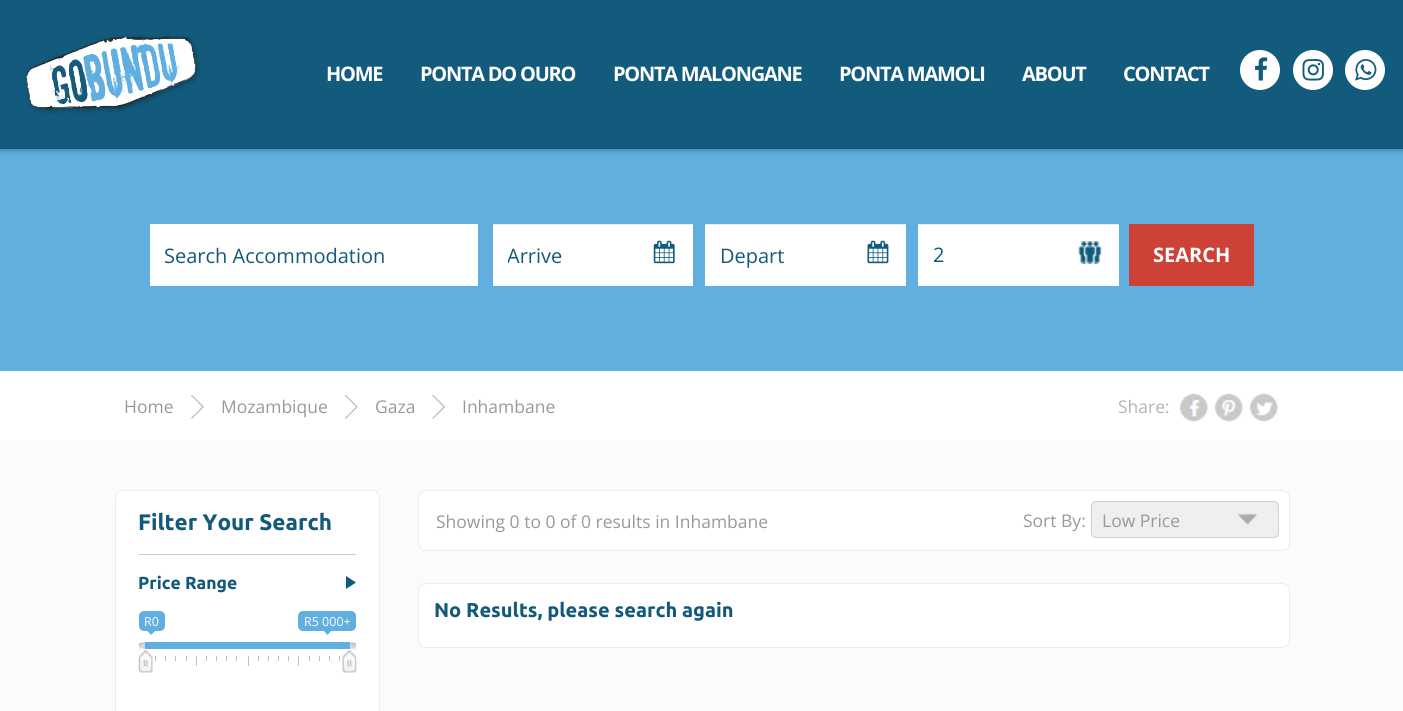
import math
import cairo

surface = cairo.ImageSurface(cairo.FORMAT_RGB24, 1403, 711)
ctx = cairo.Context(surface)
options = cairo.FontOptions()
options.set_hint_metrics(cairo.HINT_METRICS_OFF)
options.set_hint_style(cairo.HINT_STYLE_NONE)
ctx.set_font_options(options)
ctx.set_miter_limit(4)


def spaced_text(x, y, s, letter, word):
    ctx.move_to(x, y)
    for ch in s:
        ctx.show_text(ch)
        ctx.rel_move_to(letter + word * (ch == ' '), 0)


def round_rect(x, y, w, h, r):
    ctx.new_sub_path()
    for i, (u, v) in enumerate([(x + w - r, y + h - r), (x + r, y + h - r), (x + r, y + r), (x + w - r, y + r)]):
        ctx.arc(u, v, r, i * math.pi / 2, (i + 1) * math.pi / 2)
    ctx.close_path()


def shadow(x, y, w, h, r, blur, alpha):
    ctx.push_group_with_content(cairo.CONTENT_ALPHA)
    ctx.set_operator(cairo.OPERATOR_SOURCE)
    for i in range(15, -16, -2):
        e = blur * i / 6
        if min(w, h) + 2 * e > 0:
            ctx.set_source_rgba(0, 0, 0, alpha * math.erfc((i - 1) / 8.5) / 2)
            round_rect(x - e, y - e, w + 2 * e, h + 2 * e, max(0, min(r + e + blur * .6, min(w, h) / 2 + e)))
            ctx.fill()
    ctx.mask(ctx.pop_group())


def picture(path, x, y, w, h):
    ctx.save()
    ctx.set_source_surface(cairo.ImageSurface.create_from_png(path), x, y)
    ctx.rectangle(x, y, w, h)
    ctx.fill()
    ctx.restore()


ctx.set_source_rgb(1, 1, 1)
ctx.paint()
ctx.set_source_rgb(0.38, 0.686, 0.875)
ctx.rectangle(0, 149, 1403, 217)
ctx.fill()
ctx.set_source_rgb(0, 0, 0)
shadow(0, 3, 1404, 148, 0, 3, 0.24)
ctx.set_source_rgb(0.071, 0.357, 0.486)
ctx.rectangle(0, 0, 1403, 149)
ctx.fill()
picture("img1.png", 24, 35, 177, 79)
ctx.select_font_face("Open Sans", cairo.FONT_SLANT_NORMAL, cairo.FONT_WEIGHT_BOLD)
ctx.set_font_size(20)
ctx.set_source_rgb(1, 1, 1)
spaced_text(326, 81, "HOME", -1.25, 0)
spaced_text(420, 81, "PONTA DO OURO", -1.25, 0)
spaced_text(613, 81, "PONTA MALONGANE", -1.25, 0)
spaced_text(839, 81, "PONTA MAMOLI", -1.25, 0)
spaced_text(1022, 81, "ABOUT", -1.25, 0)
spaced_text(1123, 81, "CONTACT", -1.25, 0)
ctx.new_path()
ctx.arc(1260, 70, 20, 0, 2 * math.pi)
ctx.fill()
picture("img2.png", 1255, 57, 13, 24)
ctx.arc(1313, 70, 20, 0, 2 * math.pi)
ctx.fill()
picture("img3.png", 1302, 59, 22, 22)
ctx.arc(1365, 70, 20, 0, 2 * math.pi)
ctx.fill()
picture("img4.png", 1355, 59, 22, 22)
ctx.rectangle(150, 224, 328, 62)
ctx.fill()
ctx.select_font_face("Open Sans")
ctx.set_source_rgb(0.078, 0.353, 0.478)
ctx.move_to(164, 263)
ctx.show_text("Search Accommodation")
ctx.set_source_rgb(1, 1, 1)
ctx.rectangle(493, 225, 200, 61)
ctx.fill()
ctx.set_source_rgb(0.925, 0.925, 0.925)
ctx.rectangle(493, 224, 200, 1)
ctx.fill()
ctx.save()
ctx.rectangle(508, 241, 170, 28)
ctx.clip()
ctx.set_source_rgb(0.078, 0.353, 0.478)
ctx.move_to(507, 263)
ctx.show_text("Arrive")
ctx.restore()
picture("img5.png", 653, 240, 22, 24)
ctx.set_source_rgb(1, 1, 1)
ctx.rectangle(705, 225, 201, 61)
ctx.fill()
ctx.set_source_rgb(0.925, 0.925, 0.925)
ctx.rectangle(705, 224, 201, 1)
ctx.fill()
ctx.set_source_rgb(0.078, 0.353, 0.478)
ctx.move_to(720, 263)
ctx.show_text("Depart")
picture("img6.png", 867, 240, 22, 24)
ctx.set_source_rgb(1, 1, 1)
ctx.rectangle(918, 225, 201, 61)
ctx.fill()
ctx.set_source_rgb(0.925, 0.925, 0.925)
ctx.rectangle(918, 224, 201, 1)
ctx.fill()
ctx.set_source_rgb(0.078, 0.353, 0.478)
ctx.move_to(933, 262)
ctx.show_text("2")
picture("img7.png", 1078, 241, 24, 23)
ctx.set_source_rgb(0.808, 0.255, 0.212)
ctx.rectangle(1129, 224, 125, 62)
ctx.fill()
ctx.select_font_face("Open Sans", cairo.FONT_SLANT_NORMAL, cairo.FONT_WEIGHT_BOLD)
ctx.set_source_rgb(1, 1, 1)
ctx.move_to(1153, 262)
ctx.show_text("SEARCH")
ctx.set_source_rgb(0.38, 0.686, 0.875)
ctx.rectangle(0, 366, 1403, 5)
ctx.fill()
ctx.select_font_face("Open Sans")
ctx.set_font_size(17.5)
ctx.set_source_rgb(0.6, 0.6, 0.6)
ctx.move_to(124, 413)
ctx.show_text("Home")
picture("img8.png", 191, 395, 13, 24)
ctx.move_to(221, 413)
ctx.show_text("Mozambique")
picture("img9.png", 345, 395, 13, 24)
ctx.move_to(375, 413)
ctx.show_text("Gaza")
picture("img10.png", 432, 395, 13, 24)
ctx.move_to(462, 413)
ctx.show_text("Inhambane")
ctx.set_source_rgb(0.702, 0.702, 0.702)
ctx.move_to(1118, 413)
ctx.show_text("Share:")
picture("img11.png", 1180, 393, 28, 29)
picture("img12.png", 1215, 393, 28, 29)
picture("img13.png", 1250, 393, 28, 29)
ctx.set_source_rgb(0.984, 0.984, 0.988)
ctx.rectangle(0, 440, 1403, 271)
ctx.fill()
ctx.set_source_rgb(1, 1, 1)
round_rect(115.5, 490.5, 264, 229, 7.5)
ctx.fill_preserve()
ctx.set_source_rgb(0.925, 0.925, 0.925)
ctx.set_line_width(1)
ctx.stroke()
ctx.set_source_rgb(0.8, 0.8, 0.8)
ctx.rectangle(139, 554, 217, 1)
ctx.fill()
ctx.select_font_face("Ubuntu", cairo.FONT_SLANT_NORMAL, cairo.FONT_WEIGHT_BOLD)
ctx.set_font_size(22.5)
ctx.set_source_rgb(0.078, 0.353, 0.478)
ctx.move_to(138, 530)
ctx.show_text("Filter Your Search")
ctx.set_font_size(17.5)
ctx.move_to(138, 589)
ctx.show_text("Price Range")
ctx.new_path()
ctx.move_to(346, 589)
ctx.line_to(346, 576)
ctx.line_to(356, 582.5)
ctx.close_path()
ctx.fill()
ctx.set_source_rgb(0.38, 0.686, 0.875)
round_rect(139, 611, 26, 20, 5)
ctx.fill()
ctx.select_font_face("Open Sans")
ctx.set_font_size(12.5)
ctx.set_source_rgb(1, 1, 1)
ctx.move_to(144, 626)
ctx.show_text("R0")
ctx.set_source_rgb(0.38, 0.686, 0.875)
ctx.new_path()
ctx.move_to(147.5, 631)
ctx.line_to(155, 631)
ctx.line_to(151, 635)
ctx.close_path()
ctx.fill()
round_rect(298, 611, 58, 20, 5)
ctx.fill()
ctx.set_source_rgb(1, 1, 1)
ctx.move_to(304, 626)
ctx.show_text("R5 000+")
ctx.set_source_rgb(0.38, 0.686, 0.875)
ctx.new_path()
ctx.move_to(324, 631)
ctx.line_to(331, 631)
ctx.line_to(327.5, 635)
ctx.close_path()
ctx.fill()
picture("img14.png", 138, 642, 25, 8)
picture("img15.png", 332, 642, 25, 8)
ctx.rectangle(145, 642, 205, 7)
ctx.fill()
picture("img16.png", 138, 650, 15, 23)
ctx.set_source_rgb(0.753, 0.753, 0.753)
ctx.rectangle(155, 656, 1, 5)
ctx.fill()
ctx.rectangle(165, 656, 1, 5)
ctx.fill()
ctx.rectangle(175, 656, 1, 5)
ctx.fill()
ctx.rectangle(186, 656, 1, 5)
ctx.fill()
ctx.rectangle(196, 656, 1, 10)
ctx.fill()
ctx.rectangle(206, 656, 1, 5)
ctx.fill()
ctx.rectangle(216, 656, 1, 5)
ctx.fill()
ctx.rectangle(226, 656, 1, 5)
ctx.fill()
ctx.rectangle(236, 656, 1, 5)
ctx.fill()
ctx.rectangle(248, 656, 1, 10)
ctx.fill()
ctx.rectangle(258, 656, 1, 5)
ctx.fill()
ctx.rectangle(268, 656, 1, 5)
ctx.fill()
ctx.rectangle(278, 656, 1, 5)
ctx.fill()
ctx.rectangle(288, 656, 1, 5)
ctx.fill()
ctx.rectangle(298, 656, 1, 10)
ctx.fill()
ctx.rectangle(309, 656, 1, 5)
ctx.fill()
ctx.rectangle(319, 656, 1, 5)
ctx.fill()
ctx.rectangle(329, 656, 1, 5)
ctx.fill()
ctx.rectangle(339, 656, 1, 5)
ctx.fill()
picture("img17.png", 342, 650, 15, 23)
ctx.set_source_rgb(1, 1, 1)
round_rect(418.5, 490.5, 871, 60, 7.5)
ctx.fill_preserve()
ctx.set_source_rgb(0.925, 0.925, 0.925)
ctx.stroke()
ctx.set_font_size(17.5)
ctx.set_source_rgb(0.6, 0.6, 0.6)
ctx.move_to(436, 528)
ctx.show_text("Showing 0 to 0 of 0 results in Inhambane")
ctx.move_to(1023, 527)
ctx.show_text("Sort By:")
ctx.set_source_rgb(0.937, 0.937, 0.937)
round_rect(1091, 501, 188, 37, 5)
ctx.fill()
picture("img18.png", 1237, 513, 21, 12)
round_rect(1091.5, 501.5, 187, 36, 4.5)
ctx.set_source_rgb(0.812, 0.812, 0.812)
ctx.stroke()
ctx.set_source_rgb(0.6, 0.6, 0.6)
ctx.move_to(1102, 527)
ctx.show_text("Low Price")
ctx.set_source_rgb(1, 1, 1)
round_rect(418.5, 583.5, 871, 64, 7.5)
ctx.fill_preserve()
ctx.set_source_rgb(0.925, 0.925, 0.925)
ctx.stroke()
ctx.select_font_face("Ubuntu", cairo.FONT_SLANT_NORMAL, cairo.FONT_WEIGHT_BOLD)
ctx.set_font_size(20)
ctx.set_source_rgb(0.078, 0.353, 0.478)
ctx.move_to(434, 617)
ctx.show_text("No Results, please search again")
surface.write_to_png("page.png")
